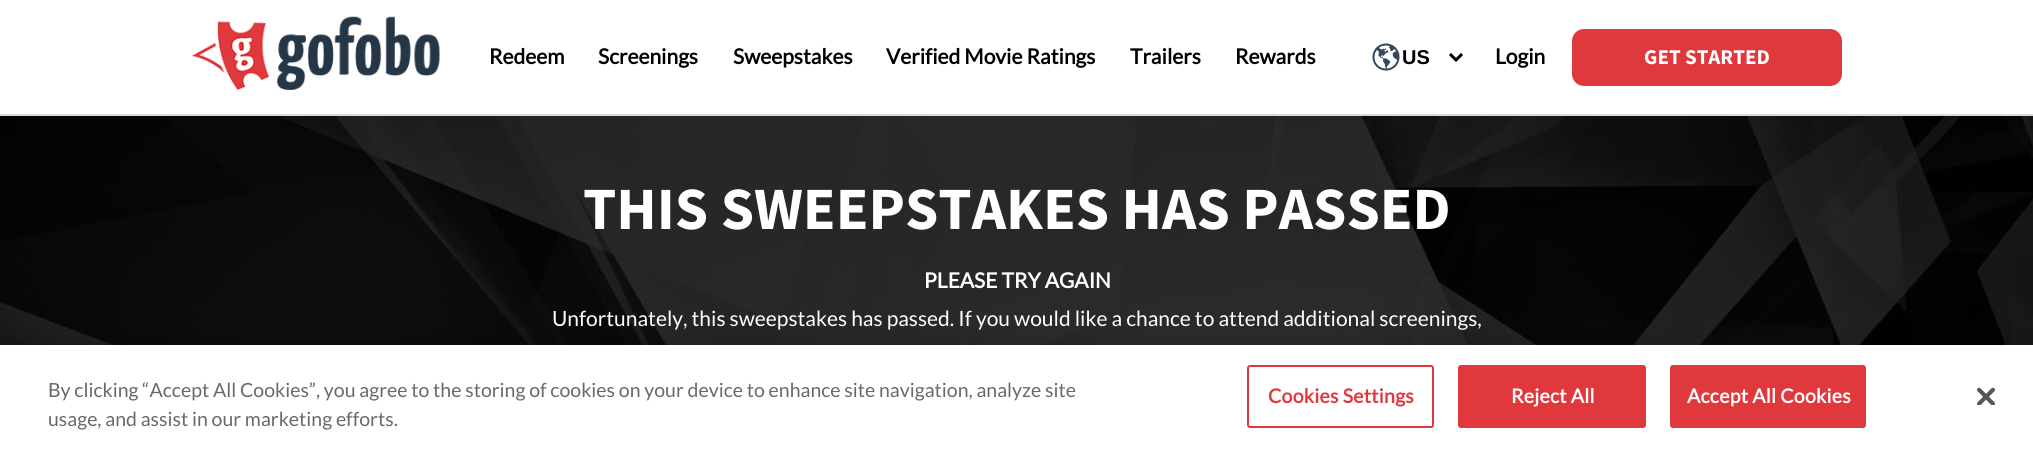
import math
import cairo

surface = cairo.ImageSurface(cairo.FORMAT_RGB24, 2033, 451)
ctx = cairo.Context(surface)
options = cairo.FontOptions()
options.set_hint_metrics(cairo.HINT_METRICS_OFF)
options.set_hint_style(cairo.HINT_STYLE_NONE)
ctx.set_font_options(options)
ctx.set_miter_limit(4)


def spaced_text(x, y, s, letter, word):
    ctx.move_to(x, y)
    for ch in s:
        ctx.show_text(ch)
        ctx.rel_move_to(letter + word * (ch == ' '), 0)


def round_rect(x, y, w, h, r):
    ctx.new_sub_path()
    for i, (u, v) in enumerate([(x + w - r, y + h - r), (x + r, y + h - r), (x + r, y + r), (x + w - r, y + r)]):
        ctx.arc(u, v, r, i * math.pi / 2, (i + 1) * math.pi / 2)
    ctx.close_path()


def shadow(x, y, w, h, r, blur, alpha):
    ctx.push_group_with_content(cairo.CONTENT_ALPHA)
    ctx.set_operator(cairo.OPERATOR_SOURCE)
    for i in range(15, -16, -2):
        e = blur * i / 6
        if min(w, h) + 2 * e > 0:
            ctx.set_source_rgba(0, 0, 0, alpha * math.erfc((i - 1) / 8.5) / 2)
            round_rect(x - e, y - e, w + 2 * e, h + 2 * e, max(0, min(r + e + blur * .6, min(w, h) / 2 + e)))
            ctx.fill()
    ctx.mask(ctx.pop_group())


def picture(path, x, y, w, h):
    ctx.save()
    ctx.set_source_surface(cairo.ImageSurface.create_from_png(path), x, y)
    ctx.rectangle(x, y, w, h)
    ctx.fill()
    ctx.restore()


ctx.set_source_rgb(1, 1, 1)
ctx.paint()
picture("img1.png", 0, 116, 2033, 229)
ctx.set_source_rgb(0.878, 0.847, 0.847)
ctx.rectangle(0, 114, 2033, 2)
ctx.fill()
picture("img2.png", 192, 16, 248, 74)
ctx.select_font_face("Lato", cairo.FONT_SLANT_NORMAL, cairo.FONT_WEIGHT_BOLD)
ctx.set_font_size(21)
ctx.set_source_rgb(0, 0, 0)
ctx.move_to(489, 64)
ctx.show_text("Redeem")
ctx.move_to(598, 64)
ctx.show_text("Screenings")
ctx.move_to(733, 64)
ctx.show_text("Sweepstakes")
ctx.move_to(886, 64)
ctx.show_text("Verified Movie Ratings")
ctx.move_to(1130, 64)
ctx.show_text("Trailers")
ctx.move_to(1235, 64)
ctx.show_text("Rewards")
picture("img3.png", 1372, 43, 28, 28)
ctx.new_path()
ctx.move_to(1450, 54)
ctx.line_to(1456, 60)
ctx.line_to(1462, 54)
ctx.set_line_width(3)
ctx.stroke()
ctx.select_font_face("Liberation Sans", cairo.FONT_SLANT_NORMAL, cairo.FONT_WEIGHT_BOLD)
ctx.set_font_size(20)
ctx.move_to(1402, 64)
ctx.show_text("US")
ctx.select_font_face("Lato", cairo.FONT_SLANT_NORMAL, cairo.FONT_WEIGHT_BOLD)
ctx.set_font_size(21)
ctx.move_to(1495, 64)
ctx.show_text("Login")
ctx.set_source_rgb(0.878, 0.224, 0.239)
round_rect(1572, 29, 270, 57, 12)
ctx.fill()
ctx.select_font_face("Source Sans Pro", cairo.FONT_SLANT_NORMAL, cairo.FONT_WEIGHT_BOLD)
ctx.set_source_rgb(1, 1, 1)
ctx.move_to(1644, 64)
ctx.show_text("GET STARTED")
ctx.set_font_size(60)
ctx.move_to(583, 229)
ctx.show_text("THIS SWEEPSTAKES HAS PASSED")
ctx.select_font_face("Lato", cairo.FONT_SLANT_NORMAL, cairo.FONT_WEIGHT_BOLD)
ctx.set_font_size(21)
ctx.move_to(924, 288)
ctx.show_text("PLEASE TRY AGAIN")
ctx.select_font_face("Lato")
ctx.move_to(552, 326)
ctx.show_text("Unfortunately, this sweepstakes has passed. If you would like a chance to attend additional screenings,")
ctx.set_source_rgb(0, 0, 0)
shadow(0, 345, 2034, 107, 0, 13.5, 0.2)
ctx.set_source_rgb(1, 1, 1)
ctx.rectangle(0, 345, 2033, 106)
ctx.fill()
ctx.set_font_size(19.5)
ctx.set_source_rgb(0.412, 0.412, 0.412)
ctx.move_to(48, 397)
ctx.show_text("By clicking “Accept All Cookies”, you agree to the storing of cookies on your device to enhance site navigation, analyze site")
ctx.move_to(48, 426)
ctx.show_text("usage, and assist in our marketing efforts.")
round_rect(1248, 366, 185, 61, 2)
ctx.set_source_rgb(0.878, 0.224, 0.239)
ctx.set_line_width(2)
ctx.stroke()
ctx.select_font_face("Lato", cairo.FONT_SLANT_NORMAL, cairo.FONT_WEIGHT_BOLD)
spaced_text(1268, 403, "Cookies Settings", 0.25, 0)
round_rect(1459, 366, 186, 61, 2)
ctx.fill_preserve()
ctx.stroke()
ctx.set_source_rgb(1, 1, 1)
spaced_text(1511, 403, "Reject All", 0.25, 0)
ctx.set_source_rgb(0.878, 0.224, 0.239)
round_rect(1671, 366, 194, 61, 2)
ctx.fill_preserve()
ctx.stroke()
ctx.set_source_rgb(1, 1, 1)
spaced_text(1687, 403, "Accept All Cookies", 0.25, 0)
picture("img4.png", 1977, 387, 18, 18)
surface.write_to_png("page.png")
